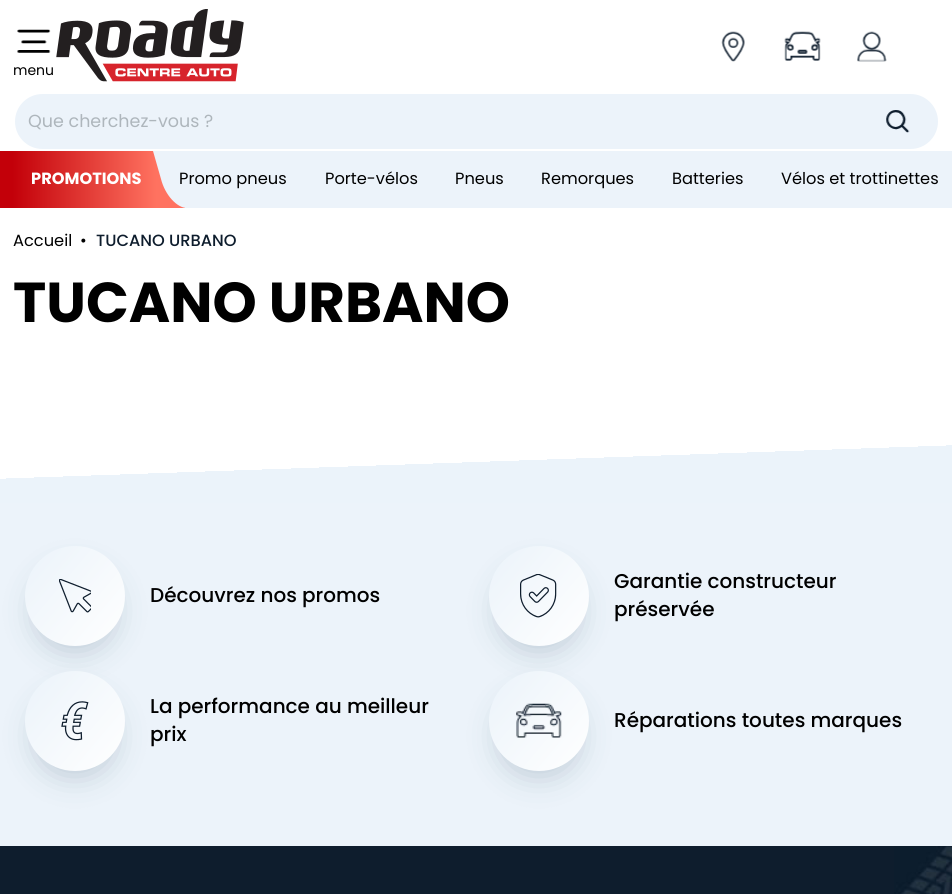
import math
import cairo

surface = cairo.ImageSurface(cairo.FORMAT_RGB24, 952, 894)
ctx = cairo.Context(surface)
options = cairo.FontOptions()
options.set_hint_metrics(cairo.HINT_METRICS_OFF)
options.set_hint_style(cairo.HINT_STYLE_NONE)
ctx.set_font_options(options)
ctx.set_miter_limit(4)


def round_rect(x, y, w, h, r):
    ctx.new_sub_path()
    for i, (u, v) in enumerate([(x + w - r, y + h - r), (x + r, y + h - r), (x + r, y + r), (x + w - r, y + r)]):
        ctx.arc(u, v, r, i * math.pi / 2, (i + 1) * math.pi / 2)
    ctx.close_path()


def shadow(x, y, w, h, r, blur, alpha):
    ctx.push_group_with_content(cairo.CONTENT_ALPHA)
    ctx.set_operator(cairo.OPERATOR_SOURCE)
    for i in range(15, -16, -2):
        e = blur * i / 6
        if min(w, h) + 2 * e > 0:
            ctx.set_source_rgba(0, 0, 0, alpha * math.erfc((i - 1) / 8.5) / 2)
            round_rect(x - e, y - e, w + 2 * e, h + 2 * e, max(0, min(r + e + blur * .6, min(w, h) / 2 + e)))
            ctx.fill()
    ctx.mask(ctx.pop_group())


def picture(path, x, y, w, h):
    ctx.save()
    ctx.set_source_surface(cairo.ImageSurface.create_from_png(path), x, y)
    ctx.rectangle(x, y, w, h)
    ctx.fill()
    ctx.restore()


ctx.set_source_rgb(1, 1, 1)
ctx.paint()
picture("img1.png", 56, 9, 188, 73)
picture("img2.png", 721, 31, 24, 31)
picture("img3.png", 784, 31, 37, 30)
picture("img4.png", 857, 31, 30, 31)
picture("img5.png", 17, 29, 34, 24)
ctx.select_font_face("Poppins")
ctx.set_font_size(14)
ctx.set_source_rgb(0, 0, 0)
ctx.move_to(13, 75)
ctx.show_text("menu")
ctx.set_source_rgb(0.922, 0.953, 0.98)
round_rect(15, 94, 923, 55, 27.5)
ctx.fill()
ctx.set_font_size(17.5)
ctx.set_source_rgb(0.682, 0.714, 0.737)
ctx.move_to(28, 127)
ctx.show_text("Que cherchez-vous ?")
picture("img6.png", 886, 110, 24, 23)
ctx.set_source_rgb(0.922, 0.953, 0.98)
ctx.rectangle(185, 151, 767, 57)
ctx.fill()
gradient = cairo.LinearGradient(-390, 179, 185, 179)
gradient.add_color_stop_rgba(0, 0.765, 0, 0.035, 1)
gradient.add_color_stop_rgba(0.7, 0.765, 0, 0.035, 1)
gradient.add_color_stop_rgba(0.95, 1, 0.447, 0.376, 1)
gradient.add_color_stop_rgba(1, 1, 0.447, 0.376, 1)
ctx.set_source(gradient)
ctx.rectangle(0, 151, 185, 57)
ctx.fill()
ctx.select_font_face("Poppins", cairo.FONT_SLANT_NORMAL, cairo.FONT_WEIGHT_BOLD)
ctx.set_font_size(16.25)
ctx.set_source_rgb(1, 1, 1)
ctx.move_to(31, 184)
ctx.show_text("PROMOTIONS")
ctx.set_source_rgb(0.922, 0.953, 0.98)
ctx.new_path()
ctx.move_to(153, 151)
ctx.line_to(191, 151)
ctx.line_to(206, 208)
ctx.line_to(187, 208)
ctx.curve_to(177, 208, 165, 195, 161, 179)
ctx.close_path()
ctx.fill()
ctx.select_font_face("Poppins")
ctx.set_source_rgb(0, 0, 0)
ctx.move_to(179, 184)
ctx.show_text("Promo pneus")
ctx.move_to(325, 184)
ctx.show_text("Porte-vélos")
ctx.move_to(455, 184)
ctx.show_text("Pneus")
ctx.move_to(541, 184)
ctx.show_text("Remorques")
ctx.move_to(672, 184)
ctx.show_text("Batteries")
ctx.move_to(781, 184)
ctx.show_text("Vélos et trottinettes")
ctx.move_to(13, 246)
ctx.show_text("Accueil")
ctx.move_to(80, 246)
ctx.show_text("•")
ctx.select_font_face("Poppins Medium")
ctx.set_source_rgb(0.055, 0.114, 0.176)
ctx.move_to(96, 246)
ctx.show_text("TUCANO URBANO")
ctx.select_font_face("Poppins", cairo.FONT_SLANT_NORMAL, cairo.FONT_WEIGHT_BOLD)
ctx.set_font_size(56.25)
ctx.set_source_rgb(0, 0, 0)
ctx.move_to(13, 322)
ctx.show_text("TUCANO URBANO")
ctx.set_source_rgb(0.922, 0.953, 0.98)
ctx.rectangle(0, 503, 952, 343)
ctx.fill()
gradient = cairo.LinearGradient(474, 405, 478, 519)
gradient.add_color_stop_rgba(0, 1, 1, 1, 1)
gradient.add_color_stop_rgba(0.5, 1, 1, 1, 1)
gradient.add_color_stop_rgba(0.5, 0.922, 0.953, 0.98, 1)
gradient.add_color_stop_rgba(1, 0.922, 0.953, 0.98, 1)
ctx.set_source(gradient)
ctx.rectangle(0, 445, 952, 58)
ctx.fill()
ctx.set_source_rgb(0.565, 0.643, 0.702)
shadow(35, 571, 80, 80, 40, 15, 0.5)
gradient = cairo.LinearGradient(129, 642, 21, 551)
gradient.add_color_stop_rgba(0, 1, 1, 1, 1)
gradient.add_color_stop_rgba(1, 0.922, 0.953, 0.98, 1)
ctx.set_source(gradient)
ctx.arc(75, 596, 50, 0, 2 * math.pi)
ctx.fill()
picture("img7.png", 59, 579, 32, 34)
ctx.select_font_face("Poppins Medium")
ctx.set_font_size(20)
ctx.set_source_rgb(0, 0, 0)
ctx.move_to(150, 602)
ctx.show_text("Découvrez nos promos")
ctx.set_source_rgb(0.565, 0.643, 0.702)
shadow(499, 571, 80, 80, 40, 15, 0.5)
gradient = cairo.LinearGradient(593, 642, 485, 551)
gradient.add_color_stop_rgba(0, 1, 1, 1, 1)
gradient.add_color_stop_rgba(1, 0.922, 0.953, 0.98, 1)
ctx.set_source(gradient)
ctx.arc(539, 596, 50, 0, 2 * math.pi)
ctx.fill()
picture("img8.png", 520, 574, 37, 44)
ctx.set_source_rgb(0, 0, 0)
ctx.move_to(614, 588)
ctx.show_text("Garantie constructeur")
ctx.move_to(614, 616)
ctx.show_text("préservée")
ctx.set_source_rgb(0.565, 0.643, 0.702)
shadow(35, 696, 80, 80, 40, 15, 0.5)
gradient = cairo.LinearGradient(129, 767, 21, 676)
gradient.add_color_stop_rgba(0, 1, 1, 1, 1)
gradient.add_color_stop_rgba(1, 0.922, 0.953, 0.98, 1)
ctx.set_source(gradient)
ctx.arc(75, 721, 50, 0, 2 * math.pi)
ctx.fill()
picture("img9.png", 61, 701, 28, 40)
ctx.set_source_rgb(0, 0, 0)
ctx.move_to(150, 713)
ctx.show_text("La performance au meilleur")
ctx.move_to(150, 741)
ctx.show_text("prix")
ctx.set_source_rgb(0.565, 0.643, 0.702)
shadow(499, 696, 80, 80, 40, 15, 0.5)
gradient = cairo.LinearGradient(593, 767, 485, 676)
gradient.add_color_stop_rgba(0, 1, 1, 1, 1)
gradient.add_color_stop_rgba(1, 0.922, 0.953, 0.98, 1)
ctx.set_source(gradient)
ctx.arc(539, 721, 50, 0, 2 * math.pi)
ctx.fill()
picture("img10.png", 516, 703, 46, 35)
ctx.set_source_rgb(0, 0, 0)
ctx.move_to(614, 727)
ctx.show_text("Réparations toutes marques")
ctx.set_source_rgb(0.055, 0.114, 0.176)
ctx.rectangle(0, 846, 952, 48)
ctx.fill()
picture("img11.png", 894, 846, 58, 48)
surface.write_to_png("page.png")
